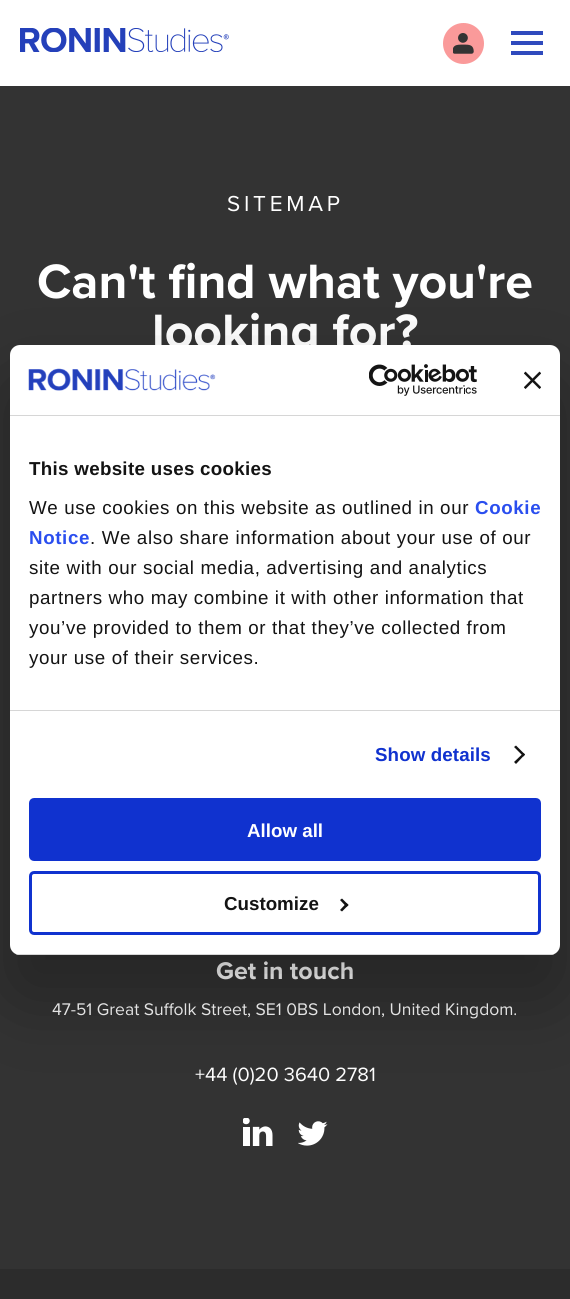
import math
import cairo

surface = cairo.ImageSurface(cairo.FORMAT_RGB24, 570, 1299)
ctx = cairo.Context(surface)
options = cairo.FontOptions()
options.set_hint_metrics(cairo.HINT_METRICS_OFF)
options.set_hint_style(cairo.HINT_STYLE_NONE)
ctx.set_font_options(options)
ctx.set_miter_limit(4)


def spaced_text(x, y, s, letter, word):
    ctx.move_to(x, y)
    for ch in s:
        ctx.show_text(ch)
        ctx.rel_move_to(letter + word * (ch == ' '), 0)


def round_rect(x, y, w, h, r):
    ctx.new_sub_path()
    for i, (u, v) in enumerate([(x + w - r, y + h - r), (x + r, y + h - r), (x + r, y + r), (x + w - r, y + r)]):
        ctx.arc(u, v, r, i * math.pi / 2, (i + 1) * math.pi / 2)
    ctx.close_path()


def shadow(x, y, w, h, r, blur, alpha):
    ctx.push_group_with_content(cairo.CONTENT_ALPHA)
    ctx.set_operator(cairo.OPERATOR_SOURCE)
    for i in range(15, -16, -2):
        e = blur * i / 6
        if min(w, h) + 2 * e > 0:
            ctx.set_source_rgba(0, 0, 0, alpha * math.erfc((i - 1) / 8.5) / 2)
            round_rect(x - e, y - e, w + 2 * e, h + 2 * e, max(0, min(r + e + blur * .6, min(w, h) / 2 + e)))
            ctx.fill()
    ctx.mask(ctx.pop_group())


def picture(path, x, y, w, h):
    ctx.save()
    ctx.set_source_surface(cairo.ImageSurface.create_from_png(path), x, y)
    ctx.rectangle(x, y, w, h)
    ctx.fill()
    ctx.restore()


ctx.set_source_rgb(1, 1, 1)
ctx.paint()
picture("img1.png", 20, 28, 209, 24)
ctx.set_source_rgb(0.98, 0.604, 0.604)
ctx.arc(463.5, 43.5, 20.5, 0, 2 * math.pi)
ctx.fill()
picture("img2.png", 453, 33, 21, 21)
ctx.set_source_rgb(0.184, 0.29, 0.741)
ctx.rectangle(511, 51, 32, 4)
ctx.fill()
ctx.rectangle(511, 41, 32, 4)
ctx.fill()
ctx.rectangle(511, 31, 32, 4)
ctx.fill()
ctx.set_source_rgb(0.2, 0.2, 0.2)
ctx.rectangle(0, 86, 570, 1183)
ctx.fill()
ctx.select_font_face("Proxima Nova")
ctx.set_font_size(22.5)
ctx.set_source_rgb(1, 1, 1)
spaced_text(227, 211, "SITEMAP", 3.75, 0)
ctx.select_font_face("Proxima Nova", cairo.FONT_SLANT_NORMAL, cairo.FONT_WEIGHT_BOLD)
ctx.set_font_size(50)
ctx.move_to(37, 298)
ctx.show_text("Can't find what you're")
ctx.move_to(152, 348)
ctx.show_text("looking for?")
ctx.set_font_size(25)
ctx.move_to(216, 979)
ctx.show_text("Get in touch")
ctx.select_font_face("Proxima Nova")
ctx.set_font_size(17.5)
ctx.move_to(52, 1015)
ctx.show_text("47-51 Great Suffolk Street, SE1 0BS London, United Kingdom.")
ctx.set_font_size(20)
ctx.move_to(195, 1081)
ctx.show_text("+44 (0)20 3640 2781")
picture("img3.png", 243, 1118, 30, 28)
picture("img4.png", 298, 1121, 30, 25)
ctx.set_source_rgb(0.173, 0.173, 0.173)
ctx.rectangle(0, 1269, 570, 30)
ctx.fill()
ctx.set_source_rgb(0, 0, 0)
shadow(10, 385, 550, 610, 10, 42.5, 0.3)
ctx.set_source_rgb(1, 1, 1)
round_rect(10, 345, 550, 610, 10)
ctx.fill()
ctx.set_source_rgb(0.839, 0.839, 0.839)
ctx.rectangle(10, 415, 550, 1)
ctx.fill()
picture("img5.png", 28, 368, 188, 23)
picture("img6.png", 369, 364, 108, 32)
picture("img7.png", 524, 371, 17, 18)
ctx.rectangle(10, 710, 550, 1)
ctx.fill()
ctx.select_font_face("Liberation Sans", cairo.FONT_SLANT_NORMAL, cairo.FONT_WEIGHT_BOLD)
ctx.set_font_size(18.75)
ctx.set_source_rgb(0.078, 0.078, 0.078)
spaced_text(29, 475, "This website uses cookies", 0.3, 0)
ctx.select_font_face("Liberation Sans")
spaced_text(29, 514, "We use cookies on this website as outlined in our", 0.62, 0)
ctx.select_font_face("Liberation Sans", cairo.FONT_SLANT_NORMAL, cairo.FONT_WEIGHT_BOLD)
ctx.set_source_rgb(0.165, 0.306, 0.937)
spaced_text(475, 514, "Cookie", 0.62, 0)
spaced_text(29, 544, "Notice", 0.62, 0)
ctx.select_font_face("Liberation Sans")
ctx.set_source_rgb(0.078, 0.078, 0.078)
spaced_text(90, 544, ". We also share information about your use of our", 0.62, 0)
spaced_text(29, 574, "site with our social media, advertising and analytics", 0.62, 0)
spaced_text(29, 604, "partners who may combine it with other information that", 0.62, 0)
spaced_text(29, 634, "you’ve provided to them or that they’ve collected from", 0.62, 0)
spaced_text(29, 664, "your use of their services.", 0.62, 0)
ctx.select_font_face("Liberation Sans", cairo.FONT_SLANT_NORMAL, cairo.FONT_WEIGHT_BOLD)
ctx.set_source_rgb(0.063, 0.196, 0.812)
spaced_text(375, 761, "Show details", 0.1, 0)
ctx.set_source_rgb(0.078, 0.078, 0.078)
ctx.new_path()
ctx.move_to(516, 745.5)
ctx.line_to(525, 754.5)
ctx.line_to(523.5, 756.5)
ctx.line_to(514, 747)
ctx.close_path()
ctx.fill()
ctx.new_path()
ctx.move_to(523.5, 753)
ctx.line_to(525, 754.5)
ctx.line_to(516, 764)
ctx.line_to(514, 762)
ctx.close_path()
ctx.fill()
ctx.save()
round_rect(10, 345, 550, 610, 10)
ctx.clip()
ctx.set_source_rgb(0.839, 0.839, 0.839)
ctx.rectangle(10, 954, 550, 1)
ctx.fill()
ctx.restore()
ctx.set_source_rgb(0.063, 0.196, 0.812)
round_rect(30.5, 799.5, 509, 60, 3.5)
ctx.fill_preserve()
ctx.set_line_width(3)
ctx.stroke()
ctx.set_source_rgb(1, 1, 1)
ctx.move_to(247, 837)
ctx.show_text("Allow all")
round_rect(30.5, 872.5, 509, 61, 3.5)
ctx.set_source_rgb(0.063, 0.196, 0.812)
ctx.stroke()
ctx.set_source_rgb(0.078, 0.078, 0.078)
ctx.move_to(224, 910)
ctx.show_text("Customize")
ctx.new_path()
ctx.move_to(342, 898.5)
ctx.line_to(348.5, 905)
ctx.line_to(346.5, 907)
ctx.line_to(340, 900)
ctx.close_path()
ctx.fill()
ctx.new_path()
ctx.move_to(346.5, 903)
ctx.line_to(348.5, 905)
ctx.line_to(342, 911.5)
ctx.line_to(340, 910)
ctx.close_path()
ctx.fill()
surface.write_to_png("page.png")
